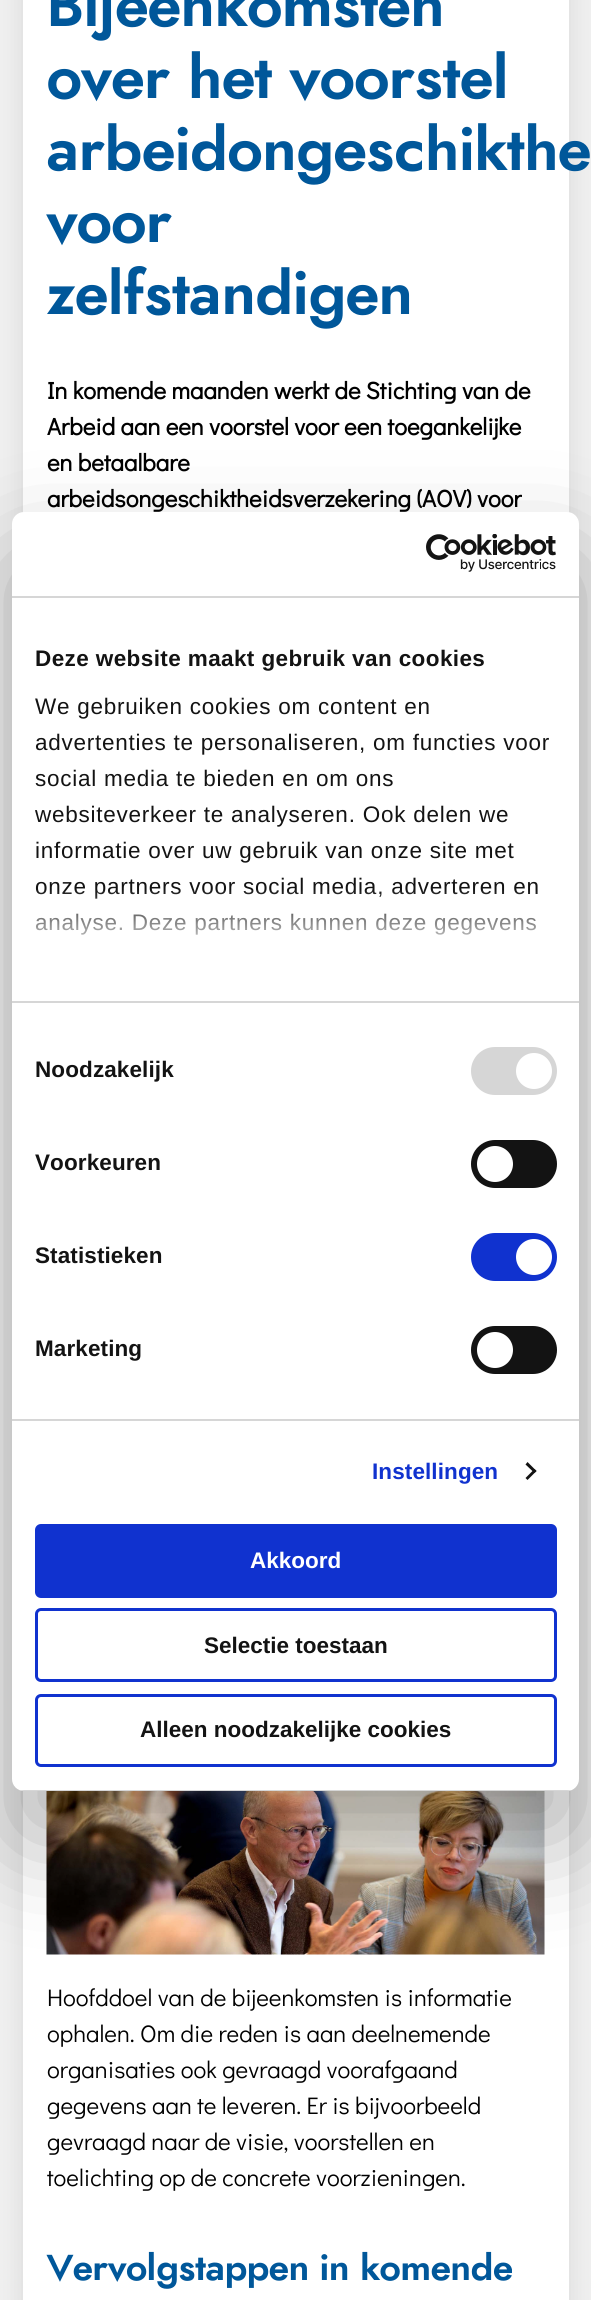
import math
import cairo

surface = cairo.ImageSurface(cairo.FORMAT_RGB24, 591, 2300)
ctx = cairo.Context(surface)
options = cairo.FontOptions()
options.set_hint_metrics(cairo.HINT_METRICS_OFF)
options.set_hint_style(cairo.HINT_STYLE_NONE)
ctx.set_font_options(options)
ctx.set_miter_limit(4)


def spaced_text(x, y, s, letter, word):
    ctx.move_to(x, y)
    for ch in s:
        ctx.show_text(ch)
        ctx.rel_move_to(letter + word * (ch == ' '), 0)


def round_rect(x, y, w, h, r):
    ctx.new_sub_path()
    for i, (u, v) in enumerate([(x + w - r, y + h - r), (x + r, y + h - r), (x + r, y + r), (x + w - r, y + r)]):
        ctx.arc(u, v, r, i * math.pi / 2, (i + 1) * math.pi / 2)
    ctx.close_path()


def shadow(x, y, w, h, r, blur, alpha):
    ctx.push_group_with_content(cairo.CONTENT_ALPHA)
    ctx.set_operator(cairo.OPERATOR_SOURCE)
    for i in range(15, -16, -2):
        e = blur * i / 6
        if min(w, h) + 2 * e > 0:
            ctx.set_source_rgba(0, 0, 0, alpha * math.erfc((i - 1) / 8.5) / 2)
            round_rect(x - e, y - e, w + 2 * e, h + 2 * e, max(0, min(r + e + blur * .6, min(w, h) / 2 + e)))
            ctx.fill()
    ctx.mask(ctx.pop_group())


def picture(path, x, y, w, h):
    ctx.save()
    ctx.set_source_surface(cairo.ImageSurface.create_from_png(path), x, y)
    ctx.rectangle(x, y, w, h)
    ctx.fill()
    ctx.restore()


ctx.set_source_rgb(0.937, 0.937, 0.937)
ctx.paint()
ctx.set_source_rgb(0, 0, 0)
shadow(23, -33, 546, 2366, 0, 11, 0.1)
ctx.set_source_rgb(1, 1, 1)
ctx.rectangle(23, 0, 546, 2300)
ctx.fill()
ctx.select_font_face("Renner", cairo.FONT_SLANT_NORMAL, cairo.FONT_WEIGHT_BOLD)
ctx.set_font_size(60)
ctx.set_source_rgb(0, 0.341, 0.604)
ctx.move_to(47, 26)
ctx.show_text("Bijeenkomsten")
ctx.move_to(47, 98)
ctx.show_text("over het voorstel")
ctx.move_to(47, 170)
ctx.show_text("arbeidongeschikthe")
ctx.move_to(47, 242)
ctx.show_text("voor")
ctx.move_to(47, 314)
ctx.show_text("zelfstandigen")
ctx.select_font_face("Didact Gothic", cairo.FONT_SLANT_NORMAL, cairo.FONT_WEIGHT_BOLD)
ctx.set_font_size(24)
ctx.set_source_rgb(0, 0, 0)
ctx.move_to(47, 399)
ctx.show_text("In komende maanden werkt de Stichting van de")
ctx.move_to(47, 435)
ctx.show_text("Arbeid aan een voorstel voor een toegankelijke")
ctx.move_to(47, 471)
ctx.show_text("en betaalbare")
ctx.move_to(47, 507)
ctx.show_text("arbeidsongeschiktheidsverzekering (AOV) voor")
picture("img1.png", 46, 1791, 499, 164)
ctx.select_font_face("Didact Gothic")
ctx.move_to(47, 2006)
ctx.show_text("Hoofddoel van de bijeenkomsten is informatie")
ctx.move_to(47, 2042)
ctx.show_text("ophalen. Om die reden is aan deelnemende")
ctx.move_to(47, 2078)
ctx.show_text("organisaties ook gevraagd voorafgaand")
ctx.move_to(47, 2114)
ctx.show_text("gegevens aan te leveren. Er is bijvoorbeeld")
ctx.move_to(47, 2150)
ctx.show_text("gevraagd naar de visie, voorstellen en")
ctx.move_to(47, 2186)
ctx.show_text("toelichting op de concrete voorzieningen.")
ctx.select_font_face("Renner", cairo.FONT_SLANT_NORMAL, cairo.FONT_WEIGHT_BOLD)
ctx.set_font_size(36)
ctx.set_source_rgb(0, 0.341, 0.604)
ctx.move_to(47, 2280)
ctx.show_text("Vervolgstappen in komende")
ctx.set_source_rgb(0, 0, 0)
shadow(12, 560, 567, 1279, 12, 51, 0.3)
ctx.set_source_rgb(1, 1, 1)
round_rect(12, 512, 567, 1279, 12)
ctx.fill()
ctx.set_source_rgb(0.839, 0.839, 0.839)
ctx.rectangle(12, 596, 567, 2)
ctx.fill()
picture("img2.png", 426, 534, 130, 38)
ctx.rectangle(12, 1001, 567, 2)
ctx.fill()
ctx.select_font_face("Liberation Sans", cairo.FONT_SLANT_NORMAL, cairo.FONT_WEIGHT_BOLD)
ctx.set_font_size(22.5)
ctx.set_source_rgb(0.078, 0.078, 0.078)
spaced_text(35, 666, "Deze website maakt gebruik van cookies", 0.4, 0)
ctx.select_font_face("Liberation Sans")
spaced_text(35, 714, "We gebruiken cookies om content en", 0.75, 0)
spaced_text(35, 750, "advertenties te personaliseren, om functies voor", 0.75, 0)
spaced_text(35, 786, "social media te bieden en om ons", 0.75, 0)
spaced_text(35, 822, "websiteverkeer te analyseren. Ook delen we", 0.75, 0)
spaced_text(35, 858, "informatie over uw gebruik van onze site met", 0.75, 0)
spaced_text(35, 894, "onze partners voor social media, adverteren en", 0.75, 0)
spaced_text(35, 930, "analyse. Deze partners kunnen deze gegevens", 0.75, 0)
gradient = cairo.LinearGradient(286, 1000, 286, 888)
gradient.add_color_stop_rgba(0, 1, 1, 1, 1)
gradient.add_color_stop_rgba(0.5, 1, 1, 1, 0.8)
gradient.add_color_stop_rgba(1, 1, 1, 1, 0)
ctx.set_source(gradient)
ctx.rectangle(35, 890, 502, 45)
ctx.fill()
ctx.set_source_rgb(0.839, 0.839, 0.839)
ctx.rectangle(12, 1419, 567, 2)
ctx.fill()
ctx.select_font_face("Liberation Sans", cairo.FONT_SLANT_NORMAL, cairo.FONT_WEIGHT_BOLD)
ctx.set_source_rgb(0.078, 0.078, 0.078)
spaced_text(35, 1077, "Noodzakelijk", 0.1, 0)
ctx.set_source_rgb(0.839, 0.839, 0.839)
round_rect(471, 1047, 86, 48, 24)
ctx.fill()
ctx.set_source_rgb(1, 1, 1)
ctx.arc(534, 1071, 18, 0, 2 * math.pi)
ctx.fill()
ctx.set_source_rgb(0.078, 0.078, 0.078)
spaced_text(35, 1170, "Voorkeuren", 0.1, 0)
round_rect(471, 1140, 86, 48, 24)
ctx.fill()
ctx.set_source_rgb(1, 1, 1)
ctx.arc(495, 1164, 18, 0, 2 * math.pi)
ctx.fill()
ctx.set_source_rgb(0.078, 0.078, 0.078)
spaced_text(35, 1263, "Statistieken", 0.1, 0)
ctx.set_source_rgb(0.063, 0.196, 0.812)
round_rect(471, 1233, 86, 48, 24)
ctx.fill()
ctx.set_source_rgb(1, 1, 1)
ctx.arc(534, 1257, 18, 0, 2 * math.pi)
ctx.fill()
ctx.set_source_rgb(0.078, 0.078, 0.078)
spaced_text(35, 1356, "Marketing", 0.1, 0)
round_rect(471, 1326, 86, 48, 24)
ctx.fill()
ctx.set_source_rgb(1, 1, 1)
ctx.arc(495, 1350, 18, 0, 2 * math.pi)
ctx.fill()
ctx.set_source_rgb(0.063, 0.196, 0.812)
spaced_text(372, 1479, "Instellingen", 0.1, 0)
ctx.set_source_rgb(0.078, 0.078, 0.078)
ctx.new_path()
ctx.move_to(527.5, 1462)
ctx.line_to(536.5, 1471)
ctx.line_to(534.5, 1473)
ctx.line_to(525.5, 1464.5)
ctx.close_path()
ctx.fill()
ctx.new_path()
ctx.move_to(534.5, 1469)
ctx.line_to(536.5, 1471)
ctx.line_to(527.5, 1480)
ctx.line_to(525.5, 1478)
ctx.close_path()
ctx.fill()
ctx.save()
round_rect(12, 512, 567, 1279, 12)
ctx.clip()
ctx.set_source_rgb(0.839, 0.839, 0.839)
ctx.rectangle(12, 1790, 567, 1)
ctx.fill()
ctx.restore()
ctx.set_source_rgb(0.063, 0.196, 0.812)
round_rect(36.5, 1525.5, 519, 71, 4.5)
ctx.fill_preserve()
ctx.set_line_width(3)
ctx.stroke()
ctx.set_source_rgb(1, 1, 1)
ctx.move_to(250, 1568)
ctx.show_text("Akkoord")
round_rect(36.5, 1609.5, 519, 71, 4.5)
ctx.set_source_rgb(0.063, 0.196, 0.812)
ctx.stroke()
ctx.set_source_rgb(0.078, 0.078, 0.078)
ctx.move_to(204, 1653)
ctx.show_text("Selectie toestaan")
round_rect(36.5, 1695.5, 519, 70, 4.5)
ctx.set_source_rgb(0.063, 0.196, 0.812)
ctx.stroke()
ctx.set_source_rgb(0.078, 0.078, 0.078)
ctx.move_to(140, 1737)
ctx.show_text("Alleen noodzakelijke cookies")
surface.write_to_png("page.png")
